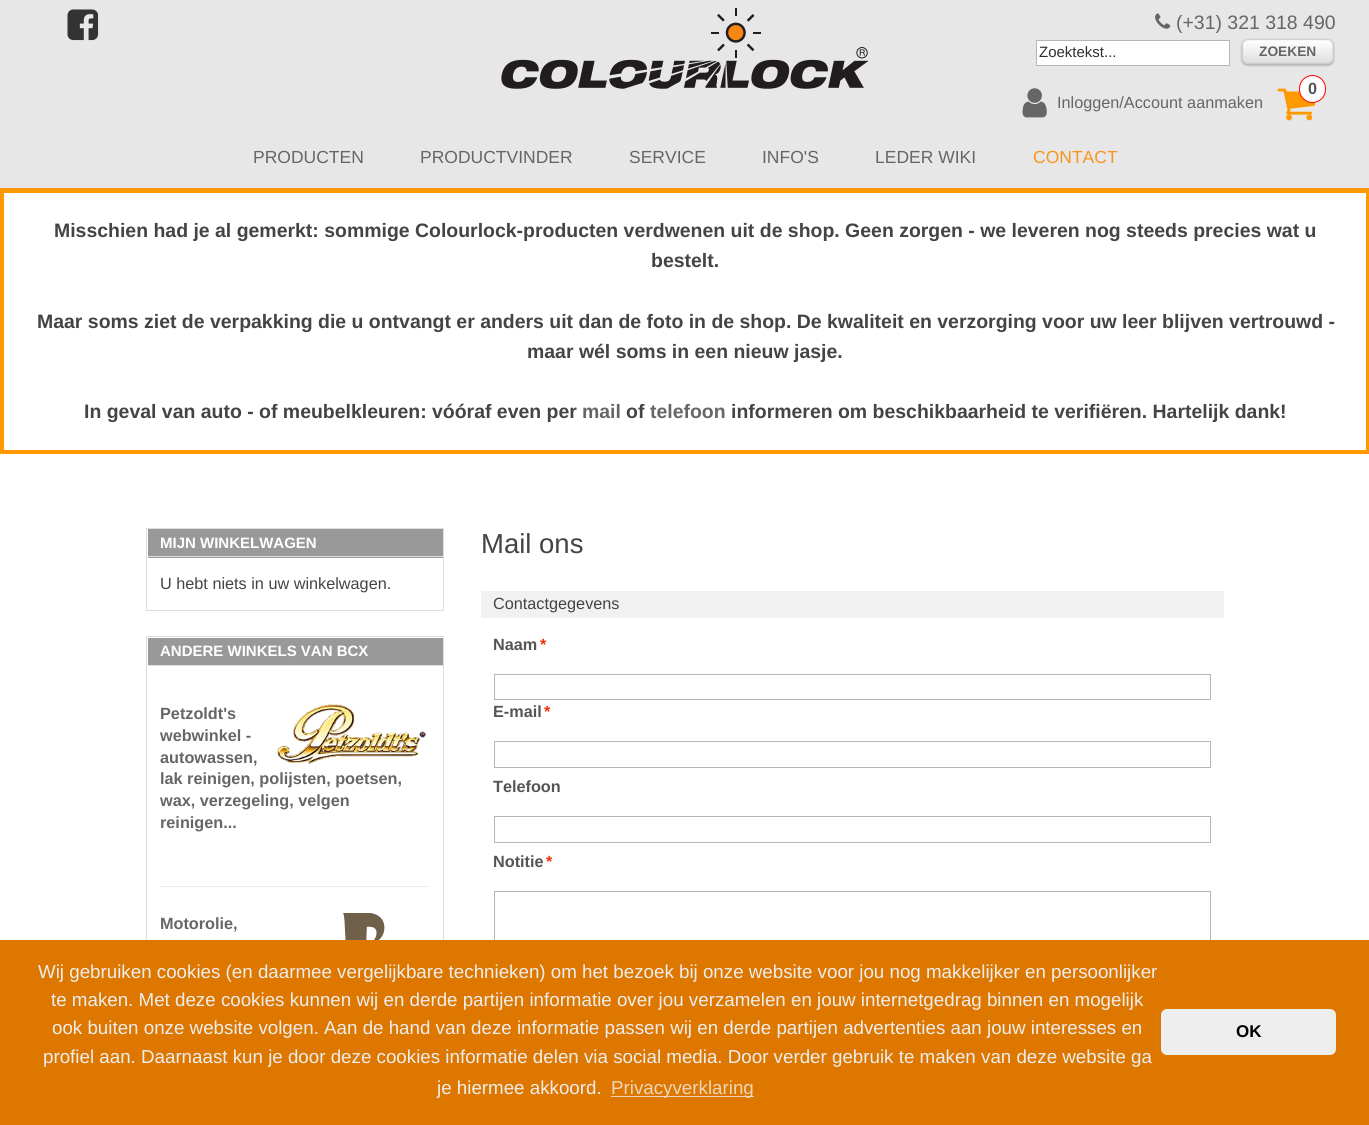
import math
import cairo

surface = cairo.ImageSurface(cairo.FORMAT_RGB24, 1369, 1125)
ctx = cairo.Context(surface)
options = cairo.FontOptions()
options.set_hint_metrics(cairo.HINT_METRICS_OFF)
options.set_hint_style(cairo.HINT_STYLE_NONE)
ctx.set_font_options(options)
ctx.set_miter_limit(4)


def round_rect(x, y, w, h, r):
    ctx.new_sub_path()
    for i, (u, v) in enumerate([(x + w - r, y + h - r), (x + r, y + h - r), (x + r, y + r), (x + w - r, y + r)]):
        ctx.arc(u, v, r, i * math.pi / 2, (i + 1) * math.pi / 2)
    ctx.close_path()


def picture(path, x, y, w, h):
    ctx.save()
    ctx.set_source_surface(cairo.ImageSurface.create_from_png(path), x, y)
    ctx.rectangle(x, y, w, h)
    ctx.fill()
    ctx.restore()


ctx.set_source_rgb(0.906, 0.906, 0.91)
ctx.paint()
picture("img1.png", 67, 9, 32, 32)
picture("img2.png", 501, 8, 368, 81)
picture("img3.png", 1155, 13, 16, 16)
ctx.select_font_face("Arimo")
ctx.set_font_size(19.45)
ctx.set_source_rgb(0.4, 0.4, 0.4)
ctx.move_to(1176, 29)
ctx.show_text("(+31) 321 318 490")
ctx.set_source_rgb(1, 1, 1)
ctx.rectangle(1036.5, 40.5, 193, 25)
ctx.fill_preserve()
ctx.set_source_rgb(0.714, 0.714, 0.714)
ctx.set_line_width(1)
ctx.stroke()
ctx.select_font_face("Liberation Sans")
ctx.set_font_size(15)
ctx.set_source_rgb(0.184, 0.184, 0.184)
ctx.move_to(1039, 57)
ctx.show_text("Zoektekst...")
picture("img4.png", 1240, 38, 8, 29)
picture("img5.png", 1247, 38, 88, 29)
ctx.select_font_face("Liberation Sans", cairo.FONT_SLANT_NORMAL, cairo.FONT_WEIGHT_BOLD)
ctx.set_font_size(13.75)
ctx.set_source_rgb(0.4, 0.4, 0.4)
ctx.move_to(1259, 56)
ctx.show_text("ZOEKEN")
picture("img6.png", 1277, 88, 39, 33)
ctx.set_source_rgb(1, 1, 1)
round_rect(1299.5, 75.5, 26, 27, 13)
ctx.fill_preserve()
ctx.set_source_rgb(1, 0, 0)
ctx.stroke()
ctx.select_font_face("Arimo", cairo.FONT_SLANT_NORMAL, cairo.FONT_WEIGHT_BOLD)
ctx.set_font_size(16.25)
ctx.set_source_rgb(0.333, 0.333, 0.333)
ctx.move_to(1308, 94)
ctx.show_text("0")
picture("img7.png", 1022, 88, 25, 30)
ctx.select_font_face("Arimo")
ctx.set_source_rgb(0.4, 0.4, 0.4)
ctx.move_to(1057, 108)
ctx.show_text("Inloggen/Account aanmaken")
ctx.set_source_rgb(0.969, 0.58, 0.114)
ctx.rectangle(0, 188, 1369, 1)
ctx.fill()
ctx.set_font_size(17.5)
ctx.set_source_rgb(0.4, 0.4, 0.4)
ctx.move_to(253, 163)
ctx.show_text("PRODUCTEN")
ctx.move_to(420, 163)
ctx.show_text("PRODUCTVINDER")
ctx.move_to(629, 163)
ctx.show_text("SERVICE")
ctx.move_to(762, 163)
ctx.show_text("INFO'S")
ctx.move_to(875, 163)
ctx.show_text("LEDER WIKI")
ctx.set_source_rgb(0.969, 0.58, 0.114)
ctx.move_to(1033, 163)
ctx.show_text("CONTACT")
ctx.set_source_rgb(1, 1, 1)
ctx.rectangle(2, 191, 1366, 261)
ctx.fill_preserve()
ctx.set_source_rgb(1, 0.6, 0)
ctx.set_line_width(4)
ctx.stroke()
ctx.select_font_face("Arimo", cairo.FONT_SLANT_NORMAL, cairo.FONT_WEIGHT_BOLD)
ctx.set_font_size(19.45)
ctx.set_source_rgb(0.267, 0.267, 0.267)
ctx.move_to(54, 237)
ctx.show_text("Misschien had je al gemerkt: sommige Colourlock-producten verdwenen uit de shop. Geen zorgen - we leveren nog steeds precies wat u")
ctx.move_to(651, 267)
ctx.show_text("bestelt.")
ctx.move_to(37, 328)
ctx.show_text("Maar soms ziet de verpakking die u ontvangt er anders uit dan de foto in de shop. De kwaliteit en verzorging voor uw leer blijven vertrouwd -")
ctx.move_to(527, 358)
ctx.show_text("maar wél soms in een nieuw jasje.")
ctx.move_to(84, 418)
ctx.show_text("In geval van auto - of meubelkleuren: vóóraf even per")
ctx.set_source_rgb(0.4, 0.4, 0.4)
ctx.move_to(582, 418)
ctx.show_text("mail")
ctx.set_source_rgb(0.267, 0.267, 0.267)
ctx.move_to(626, 418)
ctx.show_text("of")
ctx.set_source_rgb(0.4, 0.4, 0.4)
ctx.move_to(650, 418)
ctx.show_text("telefoon")
ctx.set_source_rgb(0.267, 0.267, 0.267)
ctx.move_to(731, 418)
ctx.show_text("informeren om beschikbaarheid te verifiëren. Hartelijk dank!")
ctx.set_source_rgb(1, 1, 1)
ctx.rectangle(0, 454, 1369, 486)
ctx.fill()
ctx.rectangle(146.5, 528.5, 297, 82)
ctx.set_source_rgb(0.867, 0.867, 0.867)
ctx.set_line_width(1)
ctx.stroke()
ctx.set_source_rgb(0.6, 0.6, 0.6)
ctx.rectangle(148, 529, 295, 29)
ctx.fill()
ctx.set_source_rgb(0.867, 0.867, 0.867)
ctx.rectangle(148, 556, 295, 1)
ctx.fill()
ctx.select_font_face("Liberation Sans", cairo.FONT_SLANT_NORMAL, cairo.FONT_WEIGHT_BOLD)
ctx.set_font_size(15)
ctx.set_source_rgb(1, 1, 1)
ctx.move_to(160, 548)
ctx.show_text("MIJN WINKELWAGEN")
ctx.select_font_face("Arimo")
ctx.set_font_size(16.25)
ctx.set_source_rgb(0.267, 0.267, 0.267)
ctx.move_to(160, 589)
ctx.show_text("U hebt niets in uw winkelwagen.")
ctx.rectangle(146.5, 636.5, 297, 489)
ctx.set_source_rgb(0.867, 0.867, 0.867)
ctx.stroke()
ctx.set_source_rgb(0.6, 0.6, 0.6)
ctx.rectangle(148, 638, 295, 27)
ctx.fill()
ctx.set_source_rgb(0.867, 0.867, 0.867)
ctx.rectangle(148, 665, 295, 1)
ctx.fill()
ctx.select_font_face("Liberation Sans", cairo.FONT_SLANT_NORMAL, cairo.FONT_WEIGHT_BOLD)
ctx.set_font_size(15)
ctx.set_source_rgb(1, 1, 1)
ctx.move_to(160, 656)
ctx.show_text("ANDERE WINKELS VAN BCX")
ctx.select_font_face("Arimo", cairo.FONT_SLANT_NORMAL, cairo.FONT_WEIGHT_BOLD)
ctx.set_font_size(16.25)
ctx.set_source_rgb(0.4, 0.4, 0.4)
ctx.move_to(160, 719)
ctx.show_text("Petzoldt's")
picture("img8.png", 277, 704, 149, 61)
ctx.move_to(160, 741)
ctx.show_text("webwinkel -")
ctx.move_to(160, 763)
ctx.show_text("autowassen,")
ctx.move_to(160, 784)
ctx.show_text("lak reinigen, polijsten, poetsen,")
ctx.move_to(160, 806)
ctx.show_text("wax, verzegeling, velgen")
ctx.move_to(160, 828)
ctx.show_text("reinigen...")
ctx.set_source_rgb(0.933, 0.933, 0.933)
ctx.rectangle(160, 886, 270, 1)
ctx.fill()
ctx.set_source_rgb(0.4, 0.4, 0.4)
ctx.move_to(160, 929)
ctx.show_text("Motorolie,")
picture("img9.png", 343, 913, 42, 27)
ctx.select_font_face("Arimo")
ctx.set_font_size(27.5)
ctx.set_source_rgb(0.267, 0.267, 0.267)
ctx.move_to(481, 553)
ctx.show_text("Mail ons")
ctx.set_source_rgb(0.945, 0.945, 0.945)
ctx.rectangle(481, 591, 743, 27)
ctx.fill()
ctx.set_font_size(16.25)
ctx.set_source_rgb(0.267, 0.267, 0.267)
ctx.move_to(493, 609)
ctx.show_text("Contactgegevens")
ctx.select_font_face("Arimo", cairo.FONT_SLANT_NORMAL, cairo.FONT_WEIGHT_BOLD)
ctx.set_source_rgb(0.333, 0.333, 0.333)
ctx.move_to(493, 650)
ctx.show_text("Naam")
ctx.set_source_rgb(0.922, 0.204, 0.039)
ctx.move_to(540, 650)
ctx.show_text("*")
ctx.rectangle(494.5, 674.5, 716, 25)
ctx.set_source_rgb(0.714, 0.714, 0.714)
ctx.stroke()
ctx.set_source_rgb(0.333, 0.333, 0.333)
ctx.move_to(493, 717)
ctx.show_text("E-mail")
ctx.set_source_rgb(0.922, 0.204, 0.039)
ctx.move_to(544, 717)
ctx.show_text("*")
ctx.rectangle(494.5, 741.5, 716, 26)
ctx.set_source_rgb(0.714, 0.714, 0.714)
ctx.stroke()
ctx.set_source_rgb(0.333, 0.333, 0.333)
ctx.move_to(493, 792)
ctx.show_text("Telefoon")
ctx.rectangle(494.5, 816.5, 716, 26)
ctx.set_source_rgb(0.714, 0.714, 0.714)
ctx.stroke()
ctx.set_source_rgb(0.333, 0.333, 0.333)
ctx.move_to(493, 867)
ctx.show_text("Notitie")
ctx.set_source_rgb(0.922, 0.204, 0.039)
ctx.move_to(546, 867)
ctx.show_text("*")
ctx.rectangle(494.5, 891.5, 716, 149)
ctx.set_source_rgb(0.714, 0.714, 0.714)
ctx.stroke()
ctx.set_source_rgb(0.867, 0.467, 0)
ctx.rectangle(0, 940, 1369, 185)
ctx.fill()
ctx.select_font_face("Arimo")
ctx.set_font_size(18.75)
ctx.set_source_rgb(0.933, 0.933, 0.933)
ctx.move_to(38, 978)
ctx.show_text("Wij gebruiken cookies (en daarmee vergelijkbare technieken) om het bezoek bij onze website voor jou nog makkelijker en persoonlijker")
ctx.move_to(51, 1006)
ctx.show_text("te maken. Met deze cookies kunnen wij en derde partijen informatie over jou verzamelen en jouw internetgedrag binnen en mogelijk")
ctx.move_to(52, 1034)
ctx.show_text("ook buiten onze website volgen. Aan de hand van deze informatie passen wij en derde partijen advertenties aan jouw interesses en")
ctx.move_to(43, 1063)
ctx.show_text("profiel aan. Daarnaast kun je door deze cookies informatie delen via social media. Door verder gebruik te maken van deze website ga")
ctx.move_to(437, 1094)
ctx.show_text("je hiermee akkoord.")
ctx.set_source_rgb(0.922, 0.839, 0.745)
ctx.rectangle(611, 1096, 143, 1)
ctx.fill()
ctx.move_to(611, 1094)
ctx.show_text("Privacyverklaring")
ctx.set_source_rgb(0.933, 0.933, 0.933)
round_rect(1161, 1009, 175, 46, 6)
ctx.fill()
ctx.select_font_face("Arimo", cairo.FONT_SLANT_NORMAL, cairo.FONT_WEIGHT_BOLD)
ctx.set_font_size(17)
ctx.set_source_rgb(0, 0, 0)
ctx.move_to(1236, 1037)
ctx.show_text("OK")
surface.write_to_png("page.png")
